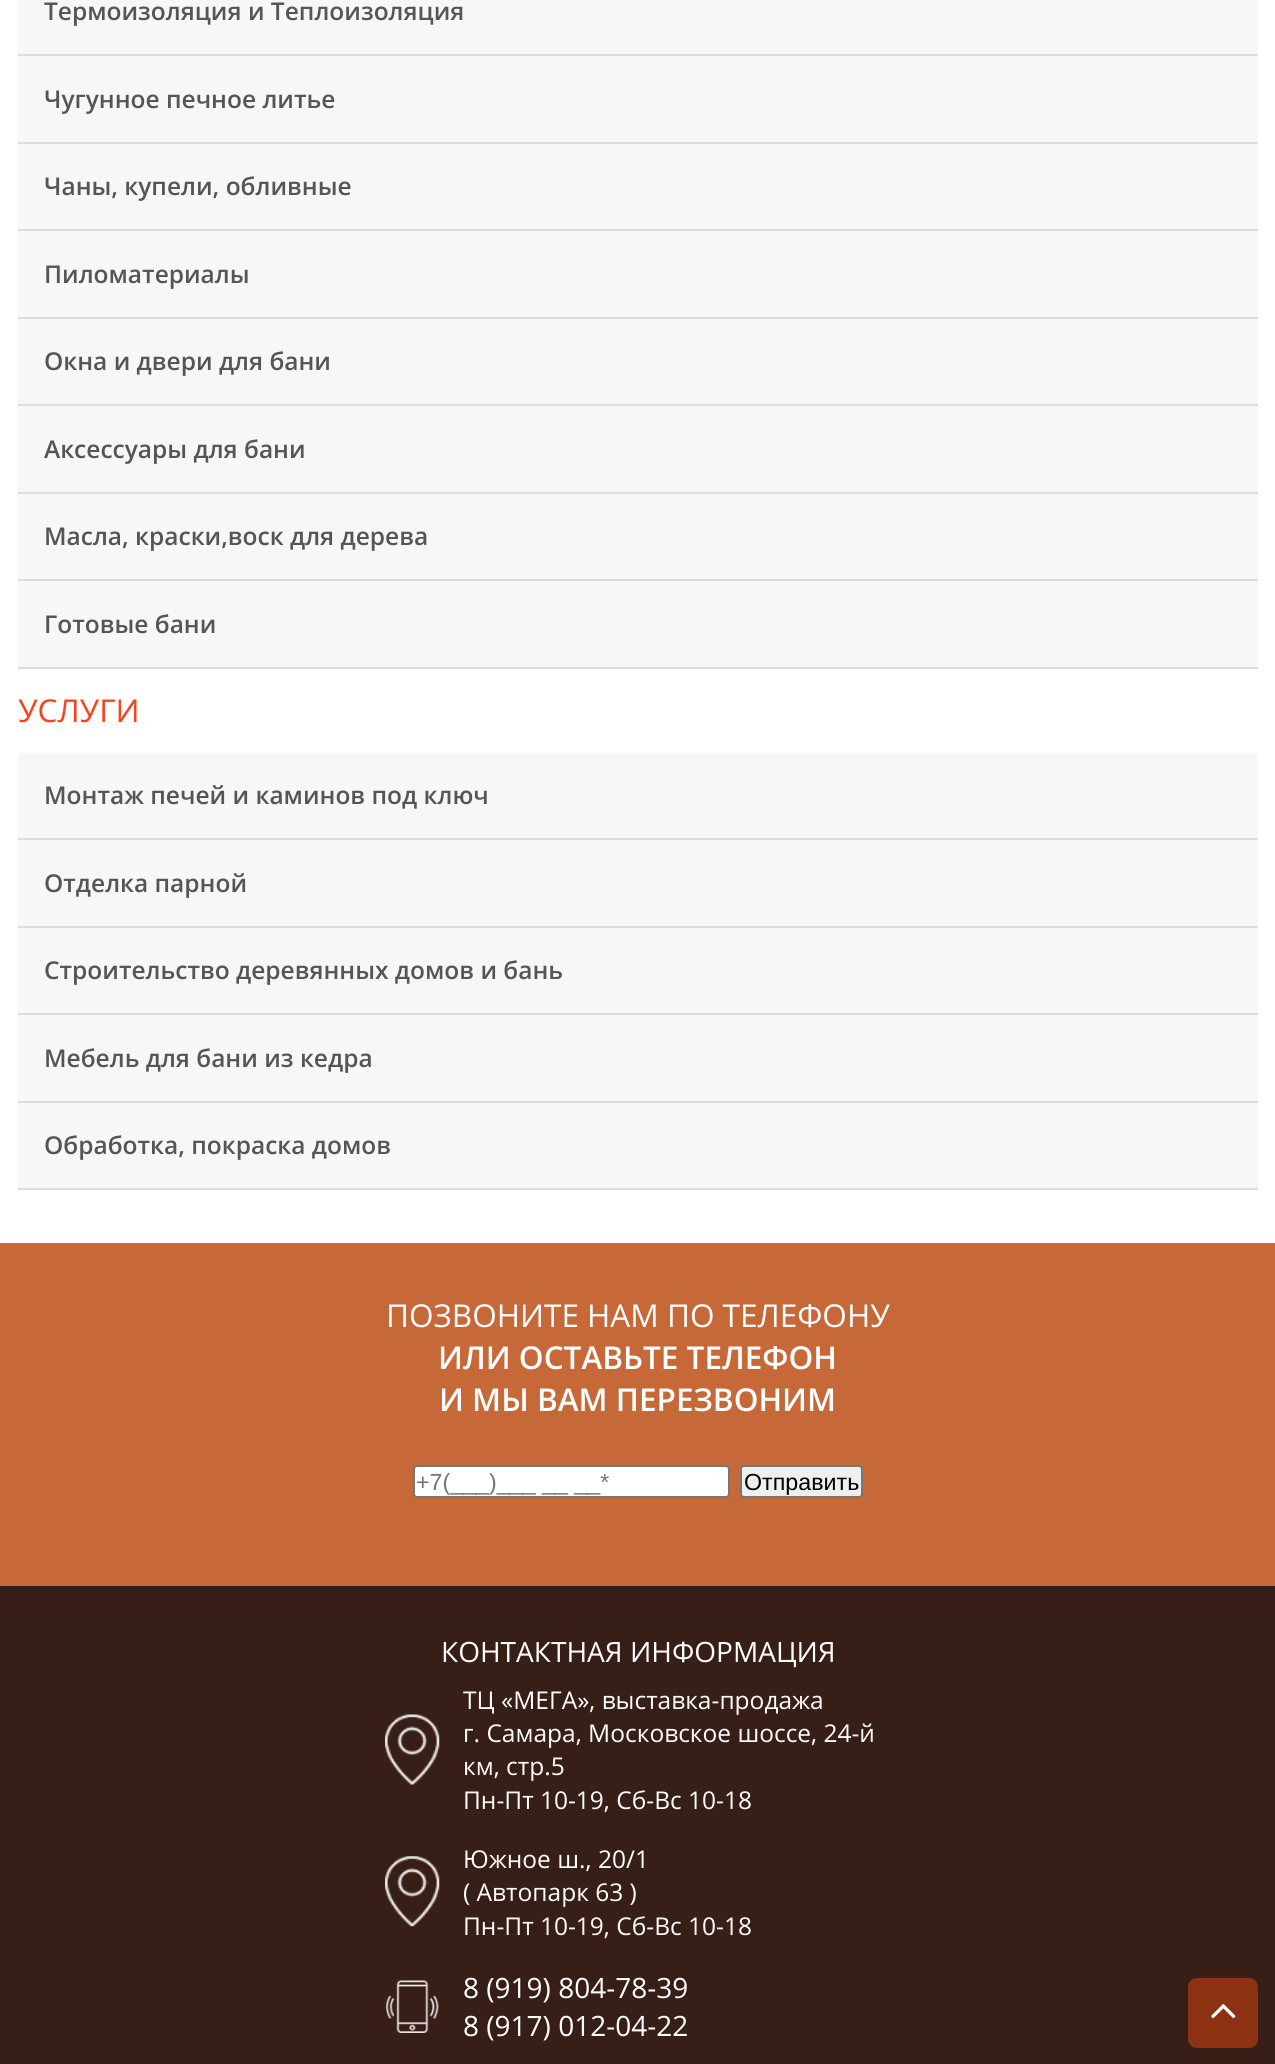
import math
import cairo

surface = cairo.ImageSurface(cairo.FORMAT_RGB24, 1275, 2064)
ctx = cairo.Context(surface)
options = cairo.FontOptions()
options.set_hint_metrics(cairo.HINT_METRICS_OFF)
options.set_hint_style(cairo.HINT_STYLE_NONE)
ctx.set_font_options(options)
ctx.set_miter_limit(4)


def round_rect(x, y, w, h, r):
    ctx.new_sub_path()
    for i, (u, v) in enumerate([(x + w - r, y + h - r), (x + r, y + h - r), (x + r, y + r), (x + w - r, y + r)]):
        ctx.arc(u, v, r, i * math.pi / 2, (i + 1) * math.pi / 2)
    ctx.close_path()


def picture(path, x, y, w, h):
    ctx.save()
    ctx.set_source_surface(cairo.ImageSurface.create_from_png(path), x, y)
    ctx.rectangle(x, y, w, h)
    ctx.fill()
    ctx.restore()


ctx.set_source_rgb(1, 1, 1)
ctx.paint()
ctx.set_source_rgb(0.965, 0.965, 0.965)
ctx.rectangle(18, 0, 1240, 667)
ctx.fill()
ctx.set_source_rgb(0.867, 0.867, 0.867)
ctx.rectangle(18, 54, 1240, 2)
ctx.fill()
ctx.select_font_face("Open Sans SemiBold")
ctx.set_font_size(24.5)
ctx.set_source_rgb(0.333, 0.333, 0.333)
ctx.move_to(44, 20)
ctx.show_text("Термоизоляция и Теплоизоляция")
ctx.set_source_rgb(0.867, 0.867, 0.867)
ctx.rectangle(18, 142, 1240, 2)
ctx.fill()
ctx.set_source_rgb(0.333, 0.333, 0.333)
ctx.move_to(44, 108)
ctx.show_text("Чугунное печное литье")
ctx.set_source_rgb(0.867, 0.867, 0.867)
ctx.rectangle(18, 229, 1240, 2)
ctx.fill()
ctx.set_source_rgb(0.333, 0.333, 0.333)
ctx.move_to(44, 195)
ctx.show_text("Чаны, купели, обливные")
ctx.set_source_rgb(0.867, 0.867, 0.867)
ctx.rectangle(18, 317, 1240, 2)
ctx.fill()
ctx.set_source_rgb(0.333, 0.333, 0.333)
ctx.move_to(44, 283)
ctx.show_text("Пиломатериалы")
ctx.set_source_rgb(0.867, 0.867, 0.867)
ctx.rectangle(18, 404, 1240, 2)
ctx.fill()
ctx.set_source_rgb(0.333, 0.333, 0.333)
ctx.move_to(44, 370)
ctx.show_text("Окна и двери для бани")
ctx.set_source_rgb(0.867, 0.867, 0.867)
ctx.rectangle(18, 492, 1240, 2)
ctx.fill()
ctx.set_source_rgb(0.333, 0.333, 0.333)
ctx.move_to(44, 458)
ctx.show_text("Аксессуары для бани")
ctx.set_source_rgb(0.867, 0.867, 0.867)
ctx.rectangle(18, 579, 1240, 2)
ctx.fill()
ctx.set_source_rgb(0.333, 0.333, 0.333)
ctx.move_to(44, 545)
ctx.show_text("Масла, краски,воск для дерева")
ctx.set_source_rgb(0.867, 0.867, 0.867)
ctx.rectangle(18, 667, 1240, 2)
ctx.fill()
ctx.set_source_rgb(0.333, 0.333, 0.333)
ctx.move_to(44, 633)
ctx.show_text("Готовые бани")
ctx.select_font_face("Open Sans")
ctx.set_font_size(31.5)
ctx.set_source_rgb(0.961, 0.263, 0.102)
ctx.move_to(18, 722)
ctx.show_text("УСЛУГИ")
ctx.set_source_rgb(0.965, 0.965, 0.965)
ctx.rectangle(18, 753, 1240, 435)
ctx.fill()
ctx.set_source_rgb(0.867, 0.867, 0.867)
ctx.rectangle(18, 838, 1240, 2)
ctx.fill()
ctx.select_font_face("Open Sans SemiBold")
ctx.set_font_size(24.5)
ctx.set_source_rgb(0.333, 0.333, 0.333)
ctx.move_to(44, 804)
ctx.show_text("Монтаж печей и каминов под ключ")
ctx.set_source_rgb(0.867, 0.867, 0.867)
ctx.rectangle(18, 926, 1240, 2)
ctx.fill()
ctx.set_source_rgb(0.333, 0.333, 0.333)
ctx.move_to(44, 892)
ctx.show_text("Отделка парной")
ctx.set_source_rgb(0.867, 0.867, 0.867)
ctx.rectangle(18, 1013, 1240, 2)
ctx.fill()
ctx.set_source_rgb(0.333, 0.333, 0.333)
ctx.move_to(44, 979)
ctx.show_text("Строительство деревянных домов и бань")
ctx.set_source_rgb(0.867, 0.867, 0.867)
ctx.rectangle(18, 1101, 1240, 2)
ctx.fill()
ctx.set_source_rgb(0.333, 0.333, 0.333)
ctx.move_to(44, 1067)
ctx.show_text("Мебель для бани из кедра")
ctx.set_source_rgb(0.867, 0.867, 0.867)
ctx.rectangle(18, 1188, 1240, 2)
ctx.fill()
ctx.set_source_rgb(0.333, 0.333, 0.333)
ctx.move_to(44, 1154)
ctx.show_text("Обработка, покраска домов")
ctx.set_source_rgb(0.78, 0.408, 0.22)
ctx.rectangle(0, 1243, 1275, 343)
ctx.fill()
ctx.select_font_face("Open Sans")
ctx.set_font_size(31.5)
ctx.set_source_rgb(1, 1, 1)
ctx.move_to(386, 1327)
ctx.show_text("ПОЗВОНИТЕ НАМ ПО ТЕЛЕФОНУ")
ctx.select_font_face("Open Sans SemiBold")
ctx.move_to(438, 1369)
ctx.show_text("ИЛИ ОСТАВЬТЕ ТЕЛЕФОН")
ctx.move_to(439, 1411)
ctx.show_text("И МЫ ВАМ ПЕРЕЗВОНИМ")
round_rect(414, 1466, 315, 31, 3)
ctx.fill_preserve()
ctx.set_source_rgb(0.463, 0.463, 0.463)
ctx.stroke()
ctx.select_font_face("Liberation Sans")
ctx.set_font_size(23.25)
ctx.set_source_rgb(0.459, 0.459, 0.459)
ctx.move_to(416, 1490)
ctx.show_text("+7(___)___ __ __*")
ctx.set_source_rgb(0.937, 0.937, 0.937)
round_rect(741, 1466, 121, 31, 3)
ctx.fill_preserve()
ctx.set_source_rgb(0.463, 0.463, 0.463)
ctx.stroke()
ctx.set_source_rgb(0, 0, 0)
ctx.move_to(744, 1490)
ctx.show_text("Отправить")
ctx.set_source_rgb(0.216, 0.122, 0.09)
ctx.rectangle(0, 1586, 1275, 478)
ctx.fill()
ctx.select_font_face("Open Sans")
ctx.set_font_size(28)
ctx.set_source_rgb(1, 1, 1)
ctx.move_to(441, 1662)
ctx.show_text("КОНТАКТНАЯ ИНФОРМАЦИЯ")
picture("img1.png", 385, 1714, 55, 71)
ctx.set_font_size(24.5)
ctx.move_to(463, 1709)
ctx.show_text("ТЦ «МЕГА», выставка-продажа")
ctx.move_to(463, 1742)
ctx.show_text("г. Самара, Московское шоссе, 24-й")
ctx.move_to(463, 1775)
ctx.show_text("км, стр.5")
ctx.move_to(463, 1809)
ctx.show_text("Пн-Пт 10-19, Сб-Вс 10-18")
picture("img2.png", 385, 1856, 55, 71)
ctx.move_to(463, 1868)
ctx.show_text("Южное ш., 20/1")
ctx.move_to(463, 1901)
ctx.show_text("( Автопарк 63 )")
ctx.move_to(463, 1935)
ctx.show_text("Пн-Пт 10-19, Сб-Вс 10-18")
picture("img3.png", 386, 1980, 53, 53)
ctx.set_font_size(28)
ctx.move_to(463, 1998)
ctx.show_text("8 (919) 804-78-39")
ctx.move_to(463, 2036)
ctx.show_text("8 (917) 012-04-22")
ctx.set_source_rgb(0.553, 0.192, 0.075)
round_rect(1188, 1978, 70, 70, 9)
ctx.fill()
picture("img4.png", 1211, 2004, 25, 15)
surface.write_to_png("page.png")
